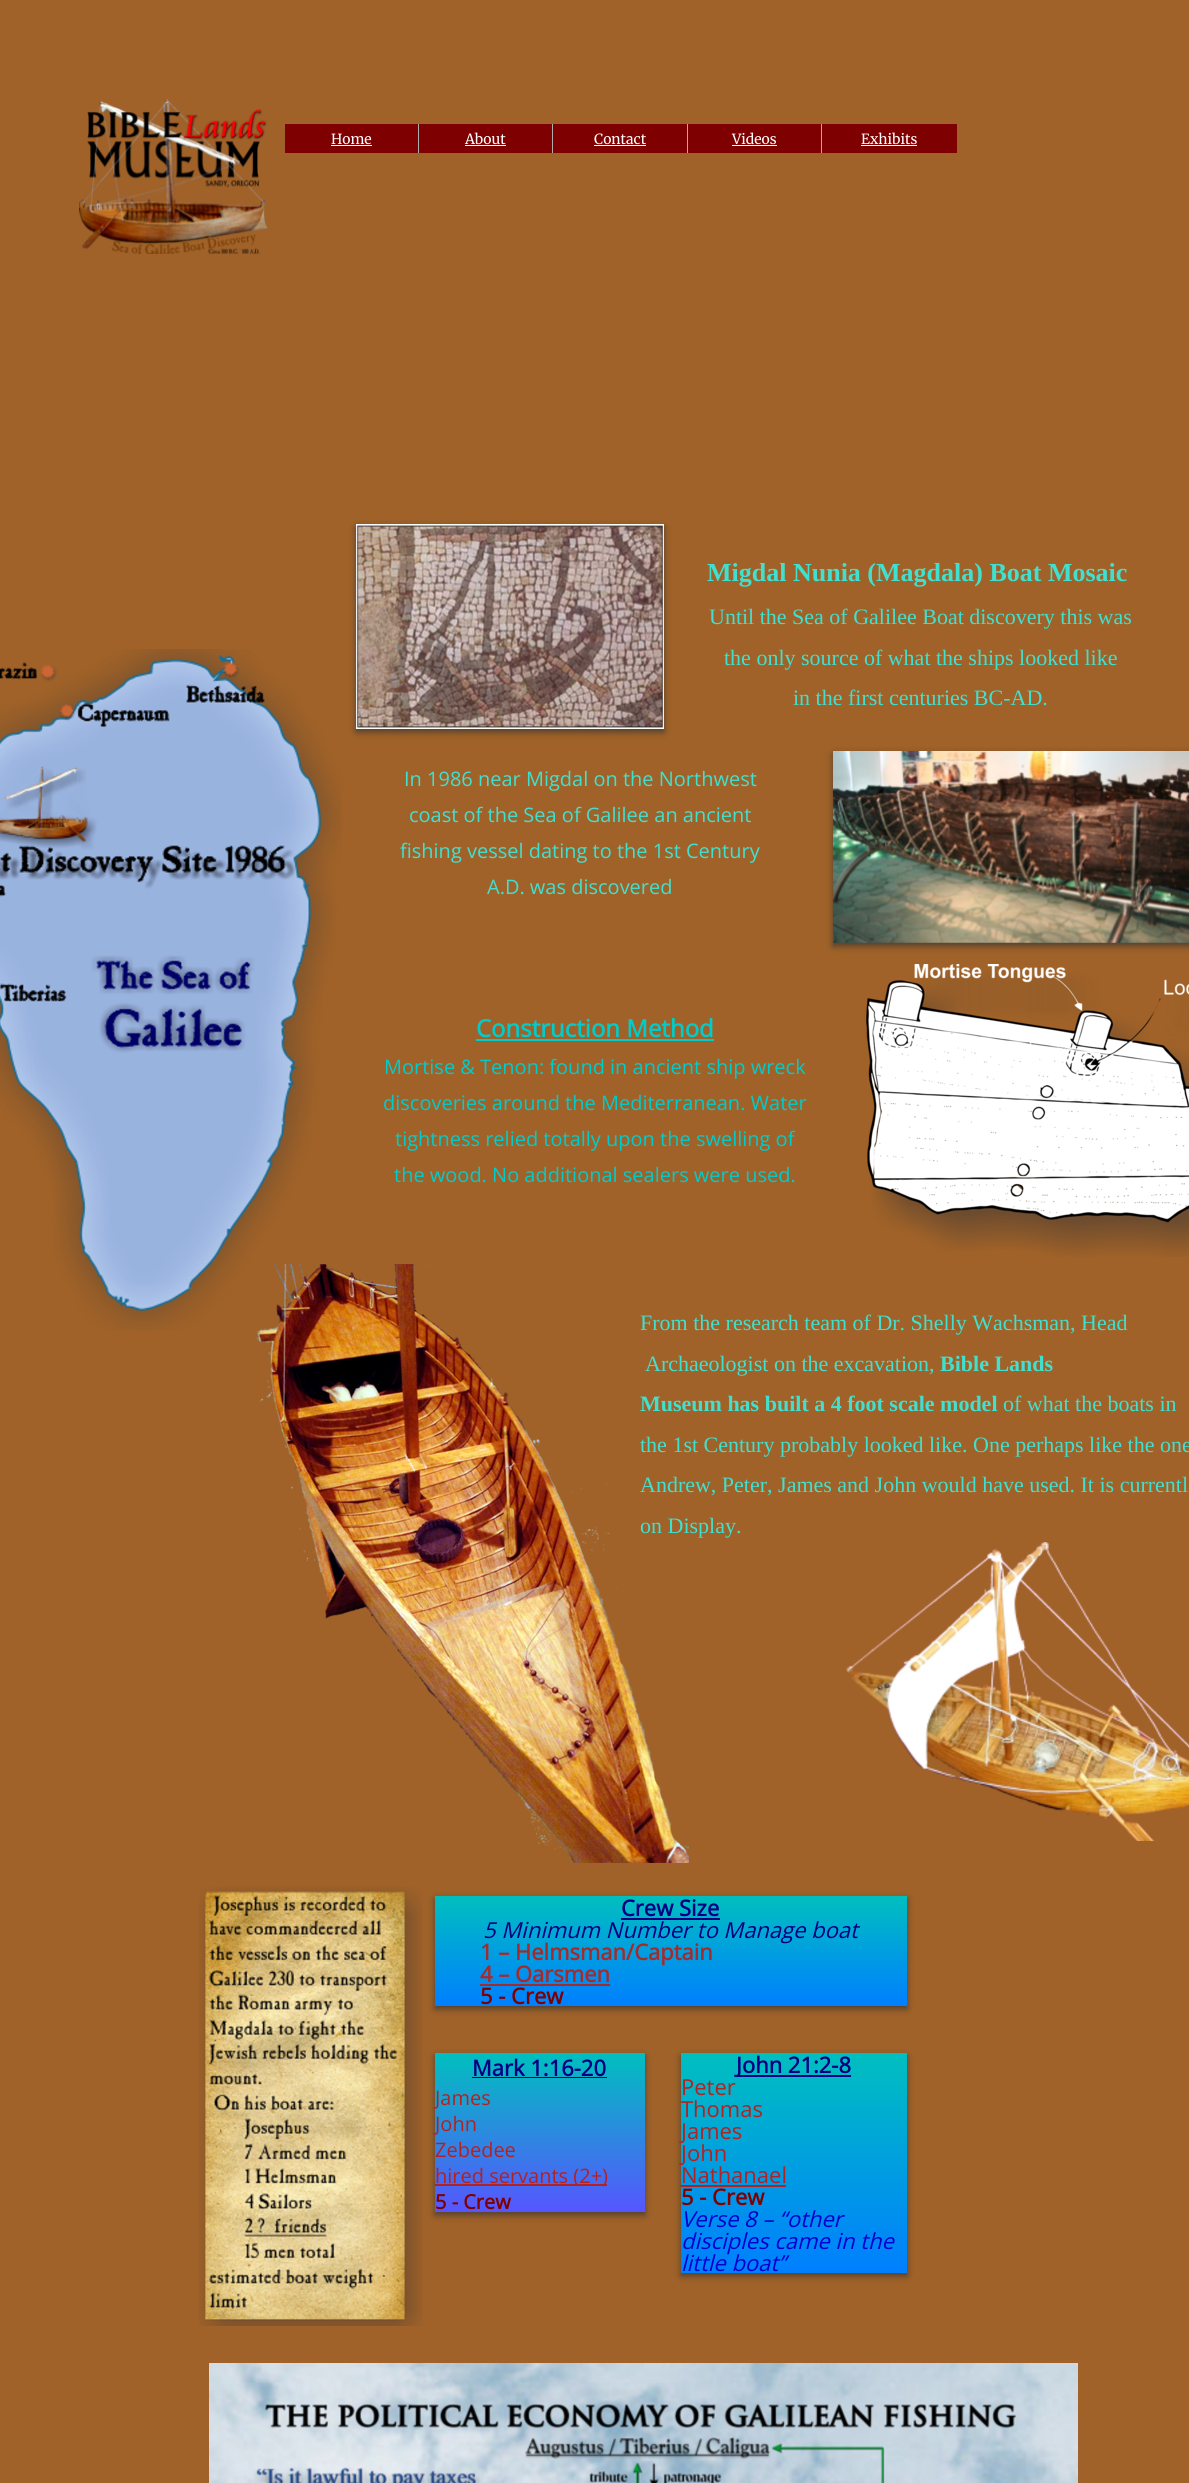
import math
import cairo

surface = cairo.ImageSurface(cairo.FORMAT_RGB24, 1189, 2483)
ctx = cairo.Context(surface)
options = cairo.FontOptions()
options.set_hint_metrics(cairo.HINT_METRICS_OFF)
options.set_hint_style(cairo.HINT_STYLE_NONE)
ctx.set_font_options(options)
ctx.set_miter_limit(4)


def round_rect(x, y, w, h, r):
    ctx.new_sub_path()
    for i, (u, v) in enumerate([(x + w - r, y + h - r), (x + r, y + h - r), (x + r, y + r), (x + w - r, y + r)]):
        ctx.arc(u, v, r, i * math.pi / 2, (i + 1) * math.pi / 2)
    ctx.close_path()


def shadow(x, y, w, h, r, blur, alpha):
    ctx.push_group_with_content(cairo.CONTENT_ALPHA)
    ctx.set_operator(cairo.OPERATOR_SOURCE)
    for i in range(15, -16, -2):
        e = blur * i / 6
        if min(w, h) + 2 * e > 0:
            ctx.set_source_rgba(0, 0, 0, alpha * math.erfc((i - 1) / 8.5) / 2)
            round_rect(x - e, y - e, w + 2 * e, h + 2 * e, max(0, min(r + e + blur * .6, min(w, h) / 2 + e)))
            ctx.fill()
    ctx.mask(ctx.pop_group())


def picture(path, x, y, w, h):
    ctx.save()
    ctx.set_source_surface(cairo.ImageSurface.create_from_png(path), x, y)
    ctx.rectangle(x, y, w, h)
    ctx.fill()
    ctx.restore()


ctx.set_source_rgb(0.627, 0.384, 0.157)
ctx.paint()
picture("img1.png", 79, 99, 189, 155)
ctx.set_source_rgb(0.498, 0, 0)
ctx.rectangle(285, 124, 133, 29)
ctx.fill()
ctx.set_source_rgb(0.682, 0.682, 0.682)
ctx.rectangle(418, 124, 1, 29)
ctx.fill()
ctx.select_font_face("Merriweather Light")
ctx.set_font_size(14)
ctx.set_source_rgb(1, 1, 1)
ctx.move_to(331, 144)
ctx.show_text("Home")
ctx.rectangle(331, 145, 41, 1)
ctx.fill()
ctx.set_source_rgb(0.498, 0, 0)
ctx.rectangle(419, 124, 133, 29)
ctx.fill()
ctx.set_source_rgb(0.682, 0.682, 0.682)
ctx.rectangle(552, 124, 1, 29)
ctx.fill()
ctx.set_source_rgb(1, 1, 1)
ctx.move_to(465, 144)
ctx.show_text("About")
ctx.rectangle(465, 145, 41, 1)
ctx.fill()
ctx.set_source_rgb(0.498, 0, 0)
ctx.rectangle(553, 124, 134, 29)
ctx.fill()
ctx.set_source_rgb(0.682, 0.682, 0.682)
ctx.rectangle(687, 124, 1, 29)
ctx.fill()
ctx.set_source_rgb(1, 1, 1)
ctx.move_to(594, 144)
ctx.show_text("Contact")
ctx.rectangle(594, 145, 52, 1)
ctx.fill()
ctx.set_source_rgb(0.498, 0, 0)
ctx.rectangle(688, 124, 133, 29)
ctx.fill()
ctx.set_source_rgb(0.682, 0.682, 0.682)
ctx.rectangle(821, 124, 1, 29)
ctx.fill()
ctx.set_source_rgb(1, 1, 1)
ctx.move_to(732, 144)
ctx.show_text("Videos")
ctx.rectangle(732, 145, 45, 1)
ctx.fill()
ctx.set_source_rgb(0.498, 0, 0)
ctx.rectangle(822, 124, 135, 29)
ctx.fill()
ctx.set_source_rgb(1, 1, 1)
ctx.move_to(861, 144)
ctx.show_text("Exhibits")
ctx.rectangle(861, 145, 56, 1)
ctx.fill()
ctx.set_source_rgb(0.196, 0.196, 0.196)
shadow(356, 527, 308, 205, 0, 3.5, 0.75)
picture("img2.png", 356, 524, 308, 205)
ctx.select_font_face("Liberation Serif", cairo.FONT_SLANT_NORMAL, cairo.FONT_WEIGHT_BOLD)
ctx.set_font_size(26)
ctx.set_source_rgb(0.251, 0.878, 0.816)
ctx.move_to(707, 581)
ctx.show_text("Migdal Nunia (Magdala) Boat Mosaic")
ctx.select_font_face("Liberation Serif")
ctx.set_font_size(22)
ctx.move_to(709, 624)
ctx.show_text("Until the Sea of Galilee Boat discovery this was")
ctx.move_to(724, 665)
ctx.show_text("the only source of what the ships looked like")
ctx.move_to(793, 705)
ctx.show_text("in the first centuries BC-AD.")
ctx.move_to(640, 1330)
ctx.show_text("From the research team of Dr. Shelly Wachsman, Head")
ctx.move_to(645, 1371)
ctx.show_text("Archaeologist on the excavation,")
ctx.select_font_face("Liberation Serif", cairo.FONT_SLANT_NORMAL, cairo.FONT_WEIGHT_BOLD)
ctx.move_to(640, 1411)
ctx.show_text("Museum has built a 4 foot scale model")
ctx.select_font_face("Liberation Serif")
ctx.move_to(640, 1452)
ctx.show_text("the 1st Century probably looked like. One perhaps like the one")
ctx.move_to(640, 1492)
ctx.show_text("Andrew, Peter, James and John would have used. It is currentl")
ctx.move_to(640, 1533)
ctx.show_text("on Display.")
picture("img6.png", 255, 1264, 434, 599)
picture("img3.png", 0, 649, 342, 682)
ctx.select_font_face("Open Sans")
ctx.set_font_size(20)
ctx.move_to(404, 786)
ctx.show_text("In 1986 near Migdal on the Northwest")
ctx.move_to(409, 822)
ctx.show_text("coast of the Sea of Galilee an ancient")
ctx.move_to(400, 858)
ctx.show_text("fishing vessel dating to the 1st Century")
ctx.move_to(487, 894)
ctx.show_text("A.D. was discovered")
ctx.set_source_rgb(0.196, 0.196, 0.196)
shadow(833, 754, 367, 192, 0, 3.5, 0.75)
picture("img4.png", 833, 751, 356, 192)
ctx.select_font_face("Open Sans", cairo.FONT_SLANT_NORMAL, cairo.FONT_WEIGHT_BOLD)
ctx.set_font_size(24)
ctx.set_source_rgb(0, 0.8, 0.8)
ctx.move_to(476, 1037)
ctx.show_text("Construction Method")
ctx.rectangle(476, 1039, 238, 2)
ctx.fill()
ctx.select_font_face("Open Sans")
ctx.set_font_size(20)
ctx.move_to(384, 1074)
ctx.show_text("Mortise & Tenon: found in ancient ship wreck")
ctx.move_to(383, 1110)
ctx.show_text("discoveries around the Mediterranean. Water")
ctx.move_to(395, 1146)
ctx.show_text("tightness relied totally upon the swelling of")
ctx.move_to(394, 1182)
ctx.show_text("the wood. No additional sealers were used.")
picture("img5.png", 866, 964, 323, 293)
ctx.select_font_face("Liberation Serif", cairo.FONT_SLANT_NORMAL, cairo.FONT_WEIGHT_BOLD)
ctx.set_font_size(22)
ctx.set_source_rgb(0.251, 0.878, 0.816)
ctx.move_to(940, 1371)
ctx.show_text("Bible Lands")
ctx.select_font_face("Liberation Serif")
ctx.move_to(1003, 1411)
ctx.show_text("of what the boats in")
picture("img7.png", 799, 1542, 390, 299)
picture("img8.png", 198, 1886, 225, 440)
ctx.set_source_rgb(0.196, 0.196, 0.196)
shadow(435, 1899, 472, 110, 0, 3.5, 0.75)
gradient = cairo.LinearGradient(671, 1896, 671, 2006)
gradient.add_color_stop_rgba(0, 0, 0.749, 0.749, 1)
gradient.add_color_stop_rgba(1, 0, 0.498, 1, 1)
ctx.set_source(gradient)
ctx.rectangle(435, 1896, 472, 110)
ctx.fill()
ctx.select_font_face("Open Sans", cairo.FONT_SLANT_NORMAL, cairo.FONT_WEIGHT_BOLD)
ctx.set_source_rgb(0, 0, 0.502)
ctx.move_to(621, 1916)
ctx.show_text("Crew Size")
ctx.rectangle(621, 1918, 99, 2)
ctx.fill()
ctx.select_font_face("Open Sans", cairo.FONT_SLANT_ITALIC)
ctx.move_to(483, 1938)
ctx.show_text("5 Minimum Number to Manage boat")
ctx.select_font_face("Open Sans", cairo.FONT_SLANT_NORMAL, cairo.FONT_WEIGHT_BOLD)
ctx.set_source_rgb(0.647, 0.165, 0.165)
ctx.move_to(480, 1960)
ctx.show_text("1 – Helmsman/Captain")
ctx.move_to(480, 1982)
ctx.show_text("4 – Oarsmen")
ctx.rectangle(480, 1984, 130, 2)
ctx.fill()
ctx.set_source_rgb(0.502, 0, 0)
ctx.move_to(480, 2004)
ctx.show_text("5 - Crew")
ctx.set_source_rgb(0.196, 0.196, 0.196)
shadow(435, 2056, 210, 159, 0, 3.5, 0.75)
gradient = cairo.LinearGradient(540, 2053, 540, 2212)
gradient.add_color_stop_rgba(0, 0, 0.749, 0.749, 1)
gradient.add_color_stop_rgba(1, 0.337, 0.337, 1, 1)
ctx.set_source(gradient)
ctx.rectangle(435, 2053, 210, 159)
ctx.fill()
ctx.set_source_rgb(0, 0, 0.502)
ctx.move_to(472, 2076)
ctx.show_text("Mark 1:16-20")
ctx.rectangle(472, 2077, 135, 1)
ctx.fill()
ctx.select_font_face("Open Sans")
ctx.set_font_size(20)
ctx.set_source_rgb(0.698, 0.133, 0.133)
ctx.move_to(435, 2105)
ctx.show_text("James")
ctx.move_to(435, 2131)
ctx.show_text("John")
ctx.move_to(435, 2157)
ctx.show_text("Zebedee")
ctx.rectangle(435, 2184, 172, 2)
ctx.fill()
ctx.move_to(435, 2183)
ctx.show_text("hired servants (2+)")
ctx.select_font_face("Open Sans", cairo.FONT_SLANT_NORMAL, cairo.FONT_WEIGHT_BOLD)
ctx.set_source_rgb(0.502, 0, 0)
ctx.move_to(435, 2209)
ctx.show_text("5 - Crew")
ctx.set_source_rgb(0.196, 0.196, 0.196)
shadow(681, 2056, 226, 220, 0, 3.5, 0.75)
gradient = cairo.LinearGradient(794, 2053, 794, 2273)
gradient.add_color_stop_rgba(0, 0, 0.749, 0.749, 1)
gradient.add_color_stop_rgba(1, 0, 0.498, 1, 1)
ctx.set_source(gradient)
ctx.rectangle(681, 2053, 226, 220)
ctx.fill()
ctx.set_source_rgb(0, 0, 0.502)
ctx.rectangle(736, 2075, 115, 2)
ctx.fill()
ctx.set_font_size(22)
ctx.move_to(736, 2073)
ctx.show_text("John 21:2-8")
ctx.select_font_face("Open Sans")
ctx.set_source_rgb(0.698, 0.133, 0.133)
ctx.move_to(681, 2095)
ctx.show_text("Peter")
ctx.move_to(681, 2117)
ctx.show_text("Thomas")
ctx.move_to(681, 2139)
ctx.show_text("James")
ctx.move_to(681, 2161)
ctx.show_text("John")
ctx.move_to(681, 2183)
ctx.show_text("Nathanael")
ctx.rectangle(681, 2185, 105, 2)
ctx.fill()
ctx.select_font_face("Open Sans", cairo.FONT_SLANT_NORMAL, cairo.FONT_WEIGHT_BOLD)
ctx.set_source_rgb(0.502, 0, 0)
ctx.move_to(681, 2205)
ctx.show_text("5 - Crew")
ctx.select_font_face("Open Sans", cairo.FONT_SLANT_ITALIC)
ctx.set_source_rgb(0, 0, 0.804)
ctx.move_to(681, 2227)
ctx.show_text("Verse 8 – “other")
ctx.move_to(681, 2249)
ctx.show_text("disciples came in the")
ctx.move_to(681, 2271)
ctx.show_text("little boat”")
picture("img9.png", 209, 2363, 869, 120)
surface.write_to_png("page.png")
